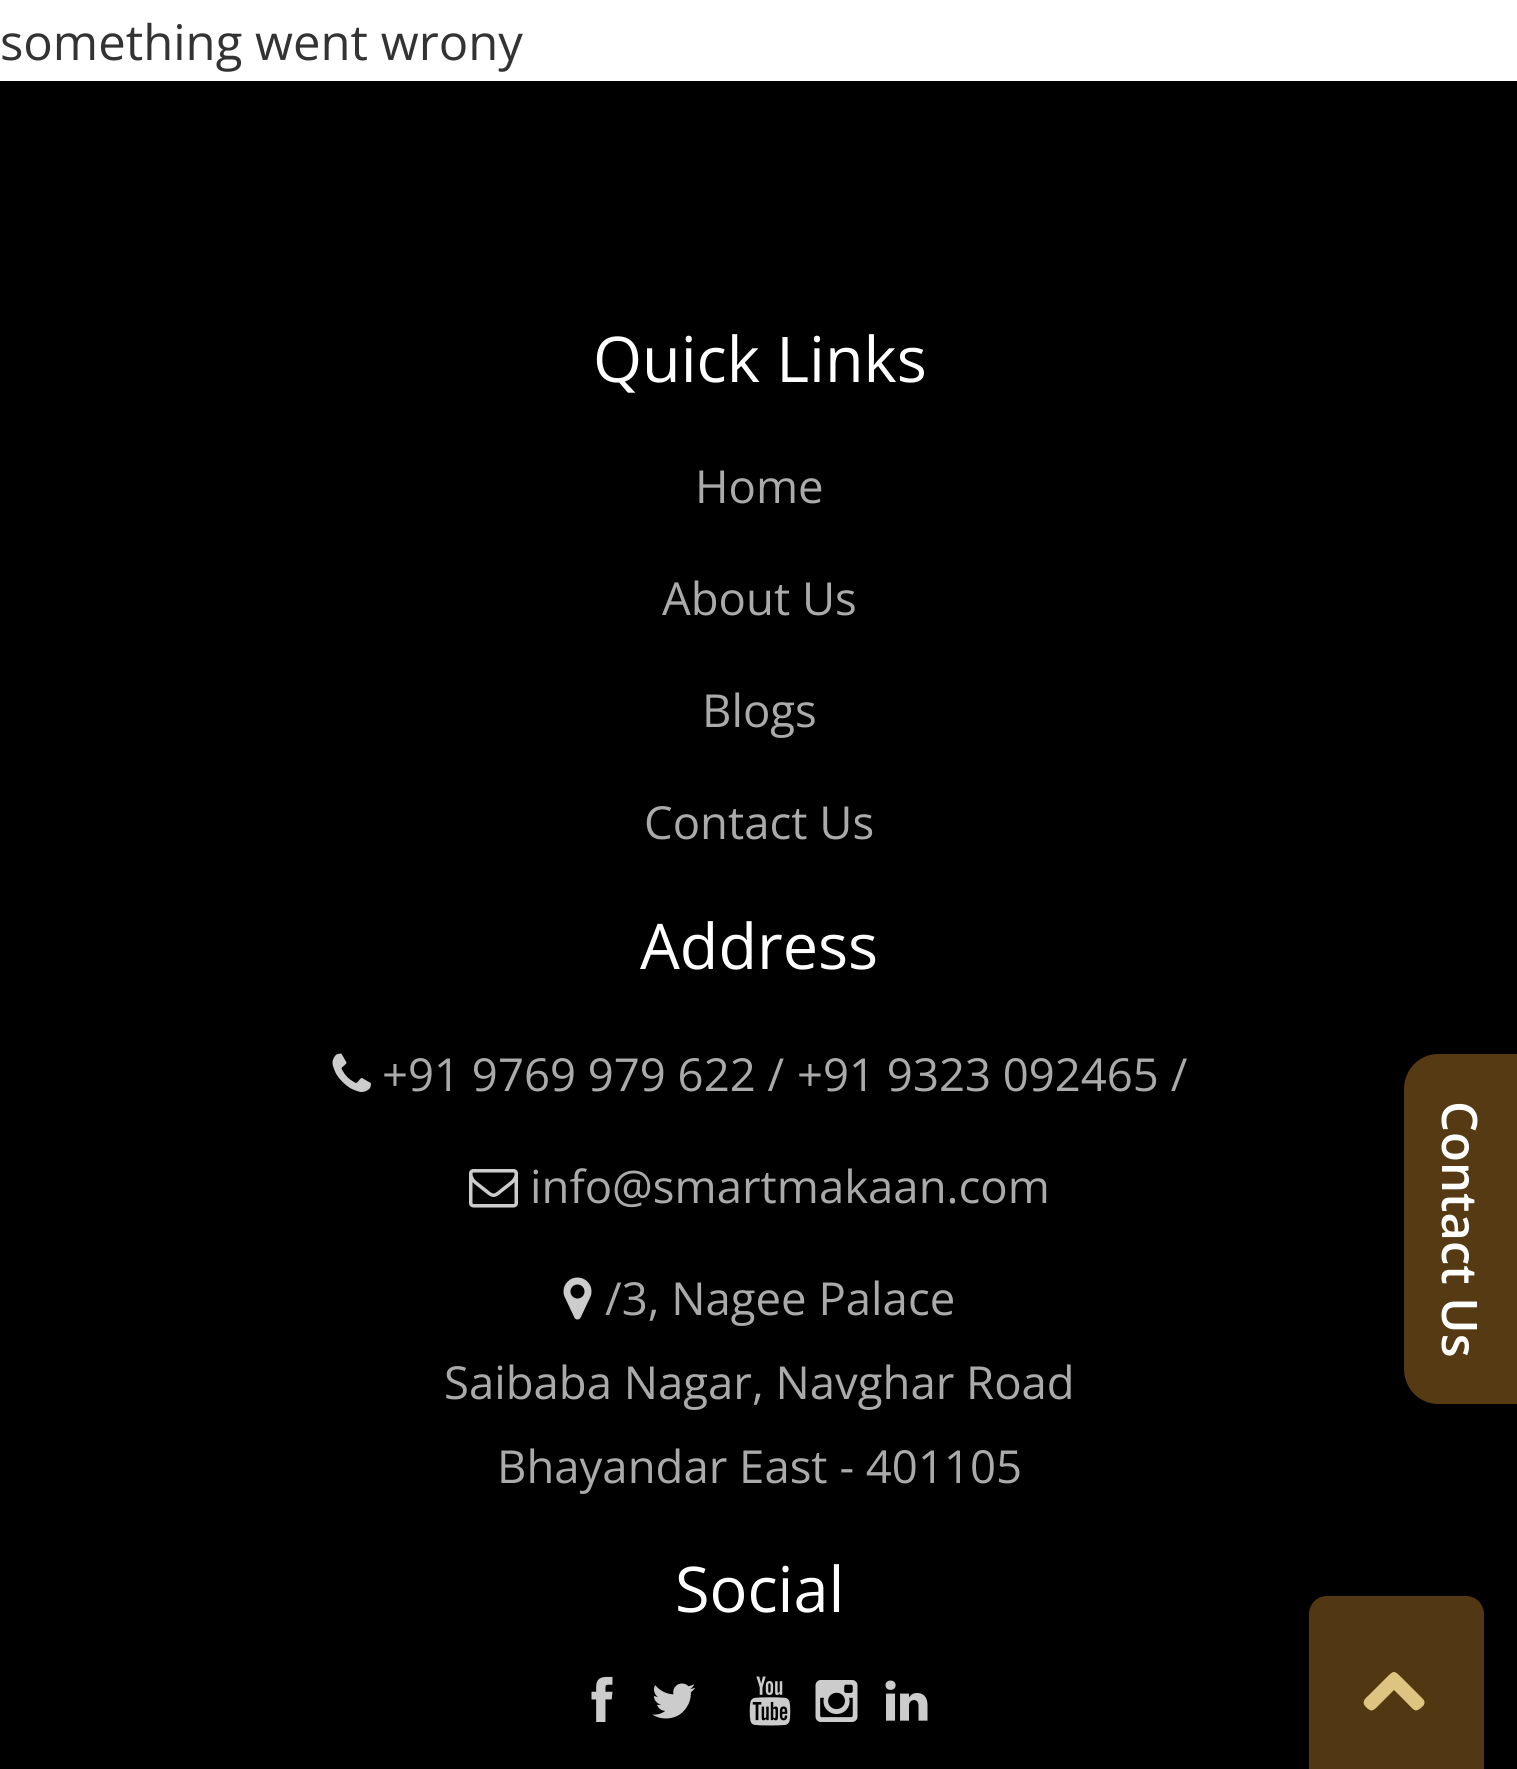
import math
import cairo

surface = cairo.ImageSurface(cairo.FORMAT_RGB24, 1517, 1769)
ctx = cairo.Context(surface)
options = cairo.FontOptions()
options.set_hint_metrics(cairo.HINT_METRICS_OFF)
options.set_hint_style(cairo.HINT_STYLE_NONE)
ctx.set_font_options(options)
ctx.set_miter_limit(4)


def picture(path, x, y, w, h):
    ctx.save()
    ctx.set_source_surface(cairo.ImageSurface.create_from_png(path), x, y)
    ctx.rectangle(x, y, w, h)
    ctx.fill()
    ctx.restore()


ctx.set_source_rgb(1, 1, 1)
ctx.paint()
ctx.select_font_face("Open Sans")
ctx.set_font_size(49)
ctx.set_source_rgb(0.2, 0.2, 0.2)
ctx.move_to(0, 60)
ctx.show_text("something went wrony")
ctx.set_source_rgb(0, 0, 0)
ctx.rectangle(0, 81, 1517, 1688)
ctx.fill()
ctx.set_font_size(63)
ctx.set_source_rgb(1, 1, 1)
ctx.move_to(593, 382)
ctx.show_text("Quick Links")
ctx.set_font_size(45.5)
ctx.set_source_rgb(0.667, 0.667, 0.667)
ctx.move_to(695, 503)
ctx.show_text("Home")
ctx.move_to(662, 615)
ctx.show_text("About Us")
ctx.move_to(702, 727)
ctx.show_text("Blogs")
ctx.move_to(644, 839)
ctx.show_text("Contact Us")
ctx.set_font_size(63)
ctx.set_source_rgb(1, 1, 1)
ctx.move_to(640, 969)
ctx.show_text("Address")
picture("img1.png", 332, 1053, 39, 39)
ctx.set_font_size(45.5)
ctx.set_source_rgb(0.667, 0.667, 0.667)
ctx.move_to(382, 1091)
ctx.show_text("+91 9769 979 622 /")
ctx.move_to(797, 1091)
ctx.show_text("+91 9323 092465 /")
picture("img2.png", 469, 1169, 49, 39)
ctx.move_to(530, 1203)
ctx.show_text("info@smartmakaan.com")
picture("img3.png", 563, 1277, 29, 43)
ctx.move_to(605, 1315)
ctx.show_text("/3, Nagee Palace")
ctx.move_to(444, 1399)
ctx.show_text("Saibaba Nagar, Navghar Road")
ctx.move_to(497, 1483)
ctx.show_text("Bhayandar East - 401105")
ctx.set_font_size(63)
ctx.set_source_rgb(1, 1, 1)
ctx.move_to(675, 1612)
ctx.show_text("Social")
picture("img4.png", 591, 1676, 22, 46)
picture("img5.png", 652, 1683, 44, 36)
picture("img6.png", 749, 1676, 42, 50)
picture("img7.png", 815, 1680, 43, 42)
picture("img8.png", 885, 1680, 43, 41)
ctx.set_source_rgb(0.333, 0.227, 0.075)
ctx.new_path()
ctx.move_to(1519, 1054)
ctx.line_to(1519, 1404)
ctx.line_to(1438, 1404)
ctx.curve_to(1419, 1404, 1404, 1388, 1404, 1369)
ctx.line_to(1404, 1089)
ctx.curve_to(1404, 1070, 1419, 1054, 1438, 1054)
ctx.close_path()
ctx.fill()
ctx.select_font_face("Open Sans SemiBold")
ctx.set_font_size(49)
ctx.set_source_rgb(1, 1, 1)
ctx.save()
ctx.translate(1442, 1101)
ctx.rotate(90 * math.pi / 180)
ctx.move_to(0, 0)
ctx.show_text("Contact Us")
ctx.restore()
ctx.set_source_rgb(0.318, 0.216, 0.071)
ctx.new_path()
ctx.move_to(1327, 1596)
ctx.line_to(1466, 1596)
ctx.curve_to(1476, 1596, 1484, 1604, 1484, 1614)
ctx.line_to(1484, 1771)
ctx.line_to(1309, 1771)
ctx.line_to(1309, 1614)
ctx.curve_to(1309, 1604, 1317, 1596, 1327, 1596)
ctx.close_path()
ctx.fill()
ctx.set_source_rgb(0.867, 0.773, 0.506)
ctx.new_path()
ctx.move_to(1423, 1699)
ctx.curve_to(1425, 1701, 1425, 1704, 1423, 1706)
ctx.curve_to(1415, 1714, 1414, 1710, 1407, 1703)
ctx.line_to(1394, 1690)
ctx.line_to(1381, 1703)
ctx.curve_to(1374, 1710, 1372, 1714, 1365, 1706)
ctx.curve_to(1361, 1701, 1367, 1697, 1369, 1695)
ctx.line_to(1386, 1678)
ctx.curve_to(1394, 1670, 1394, 1670, 1402, 1678)
ctx.close_path()
ctx.fill()
surface.write_to_png("page.png")
